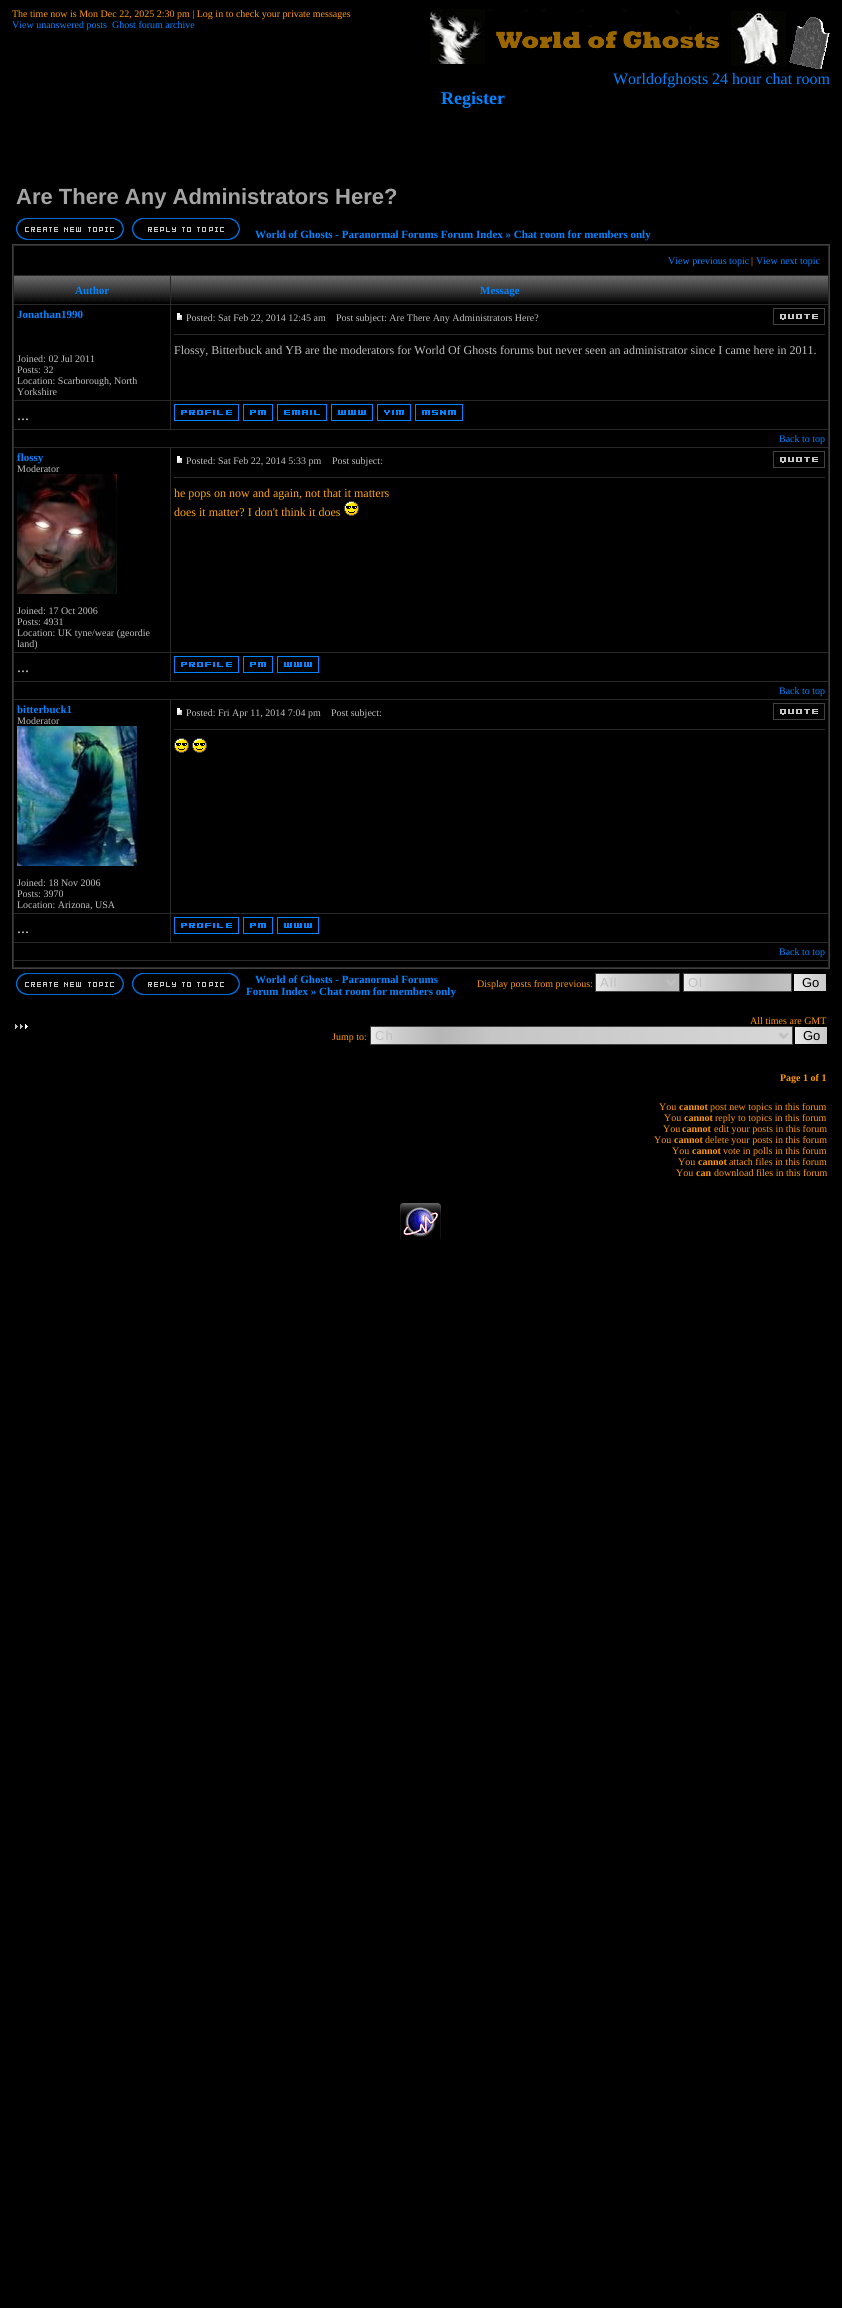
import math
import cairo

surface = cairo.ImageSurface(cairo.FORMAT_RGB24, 842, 2308)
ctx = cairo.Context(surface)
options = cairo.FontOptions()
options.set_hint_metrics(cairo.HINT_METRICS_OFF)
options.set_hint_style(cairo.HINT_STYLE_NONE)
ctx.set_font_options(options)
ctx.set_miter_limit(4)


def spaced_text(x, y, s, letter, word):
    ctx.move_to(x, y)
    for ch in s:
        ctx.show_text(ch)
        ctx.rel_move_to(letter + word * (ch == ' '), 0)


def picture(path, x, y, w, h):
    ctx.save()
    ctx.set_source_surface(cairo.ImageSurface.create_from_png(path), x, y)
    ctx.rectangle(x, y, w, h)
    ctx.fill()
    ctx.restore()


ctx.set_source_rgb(0, 0, 0)
ctx.paint()
ctx.select_font_face("Liberation Serif")
ctx.set_font_size(10)
ctx.set_source_rgb(1, 0.6, 0)
ctx.move_to(12, 17)
ctx.show_text("The time now is Mon Dec 22, 2025 2:30 pm | Log in to check your private messages")
ctx.set_source_rgb(0.004, 0.518, 1)
ctx.move_to(12, 28)
ctx.show_text("View unanswered posts")
ctx.move_to(112, 28)
ctx.show_text("Ghost forum archive")
picture("img1.png", 430, 9, 356, 57)
picture("img2.png", 789, 17, 41, 52)
ctx.set_font_size(16)
ctx.move_to(613, 84)
ctx.show_text("Worldofghosts 24 hour chat room")
ctx.select_font_face("Liberation Serif", cairo.FONT_SLANT_NORMAL, cairo.FONT_WEIGHT_BOLD)
ctx.set_font_size(18)
ctx.move_to(441, 104)
ctx.show_text("Register")
ctx.select_font_face("Liberation Sans", cairo.FONT_SLANT_NORMAL, cairo.FONT_WEIGHT_BOLD)
ctx.set_font_size(22)
ctx.set_source_rgb(0.643, 0.643, 0.643)
ctx.move_to(16, 204)
ctx.show_text("Are There Any Administrators Here?")
picture("img3.png", 16, 218, 108, 22)
picture("img4.png", 132, 218, 108, 22)
ctx.select_font_face("Liberation Serif", cairo.FONT_SLANT_NORMAL, cairo.FONT_WEIGHT_BOLD)
ctx.set_font_size(11)
ctx.set_source_rgb(0.004, 0.518, 1)
ctx.move_to(255, 238)
ctx.show_text("World of Ghosts - Paranormal Forums Forum Index » Chat room for members only")
ctx.set_source_rgb(0.161, 0.161, 0.161)
ctx.rectangle(12.5, 244.5, 817, 724)
ctx.fill_preserve()
ctx.set_source_rgb(0.251, 0.251, 0.251)
ctx.set_line_width(1)
ctx.stroke()
ctx.set_source_rgb(0, 0, 0)
ctx.rectangle(14, 246, 814, 29)
ctx.fill()
ctx.select_font_face("Liberation Serif")
ctx.set_font_size(10)
ctx.set_source_rgb(0.004, 0.518, 1)
ctx.move_to(668, 264)
ctx.show_text("View previous topic")
ctx.set_source_rgb(1, 0.6, 0)
ctx.move_to(751, 264)
ctx.show_text("|")
ctx.set_source_rgb(0.004, 0.518, 1)
ctx.move_to(756, 264)
ctx.show_text("View next topic")
ctx.set_source_rgb(0, 0, 0)
ctx.rectangle(14, 303, 156, 1)
ctx.fill()
picture("img5.png", 14, 276, 156, 27)
ctx.select_font_face("Liberation Serif", cairo.FONT_SLANT_NORMAL, cairo.FONT_WEIGHT_BOLD)
ctx.set_font_size(11)
ctx.set_source_rgb(0.004, 0.518, 1)
ctx.move_to(75, 294)
ctx.show_text("Author")
ctx.set_source_rgb(0, 0, 0)
ctx.rectangle(171, 303, 657, 1)
ctx.fill()
picture("img6.png", 171, 276, 657, 27)
ctx.set_source_rgb(0.004, 0.518, 1)
ctx.move_to(480, 294)
ctx.show_text("Message")
ctx.set_source_rgb(0, 0, 0)
ctx.rectangle(14, 305, 156, 95)
ctx.fill()
ctx.set_source_rgb(0.004, 0.518, 1)
ctx.move_to(17, 318)
ctx.show_text("Jonathan1990")
ctx.select_font_face("Liberation Serif")
ctx.set_font_size(10)
ctx.set_source_rgb(0.753, 0.753, 0.753)
ctx.move_to(17, 362)
ctx.show_text("Joined: 02 Jul 2011")
ctx.move_to(17, 373)
ctx.show_text("Posts: 32")
ctx.move_to(17, 384)
ctx.show_text("Location: Scarborough, North")
ctx.move_to(17, 395)
ctx.show_text("Yorkshire")
ctx.set_source_rgb(0, 0, 0)
ctx.rectangle(171, 305, 657, 95)
ctx.fill()
picture("img7.png", 177, 313, 5, 7)
ctx.set_source_rgb(0.753, 0.753, 0.753)
ctx.move_to(186, 321)
ctx.show_text("Posted: Sat Feb 22, 2014 12:45 am")
ctx.move_to(336, 321)
ctx.show_text("Post subject: Are There Any Administrators Here?")
picture("img8.png", 773, 308, 52, 17)
ctx.set_source_rgb(0.161, 0.161, 0.161)
ctx.rectangle(174, 334, 651, 1)
ctx.fill()
ctx.set_font_size(12)
ctx.set_source_rgb(0.753, 0.753, 0.753)
ctx.move_to(174, 354)
ctx.show_text("Flossy, Bitterbuck and YB are the moderators for World Of Ghosts forums but never seen an administrator since I came here in 2011.")
ctx.set_source_rgb(0, 0, 0)
ctx.rectangle(14, 401, 156, 28)
ctx.fill()
ctx.set_font_size(16)
ctx.set_source_rgb(0.753, 0.753, 0.753)
ctx.move_to(17, 420)
ctx.show_text("...")
ctx.set_source_rgb(0, 0, 0)
ctx.rectangle(171, 401, 657, 28)
ctx.fill()
picture("img9.png", 174, 404, 65, 17)
picture("img10.png", 243, 404, 30, 17)
picture("img11.png", 277, 404, 50, 17)
picture("img12.png", 331, 404, 42, 17)
picture("img13.png", 377, 404, 34, 17)
picture("img14.png", 415, 404, 48, 17)
ctx.rectangle(14, 430, 814, 17)
ctx.fill()
ctx.set_font_size(10)
ctx.set_source_rgb(0.004, 0.518, 1)
ctx.move_to(779, 442)
ctx.show_text("Back to top")
ctx.set_source_rgb(0, 0, 0)
ctx.rectangle(14, 448, 156, 204)
ctx.fill()
ctx.select_font_face("Liberation Serif", cairo.FONT_SLANT_NORMAL, cairo.FONT_WEIGHT_BOLD)
ctx.set_font_size(11)
ctx.set_source_rgb(0.004, 0.518, 1)
ctx.move_to(17, 461)
ctx.show_text("flossy")
ctx.select_font_face("Liberation Serif")
ctx.set_font_size(10)
ctx.set_source_rgb(0.753, 0.753, 0.753)
ctx.move_to(17, 472)
ctx.show_text("Moderator")
picture("img15.png", 17, 474, 100, 120)
ctx.move_to(17, 614)
ctx.show_text("Joined: 17 Oct 2006")
ctx.move_to(17, 625)
ctx.show_text("Posts: 4931")
ctx.move_to(17, 636)
ctx.show_text("Location: UK tyne/wear (geordie")
ctx.move_to(17, 647)
ctx.show_text("land)")
ctx.set_source_rgb(0, 0, 0)
ctx.rectangle(171, 448, 657, 204)
ctx.fill()
picture("img7.png", 177, 456, 5, 7)
ctx.set_source_rgb(0.753, 0.753, 0.753)
ctx.move_to(186, 464)
ctx.show_text("Posted: Sat Feb 22, 2014 5:33 pm")
ctx.move_to(332, 464)
ctx.show_text("Post subject:")
picture("img8.png", 773, 451, 52, 17)
ctx.set_source_rgb(0.161, 0.161, 0.161)
ctx.rectangle(174, 477, 651, 1)
ctx.fill()
ctx.set_font_size(12)
ctx.set_source_rgb(1, 0.647, 0)
ctx.move_to(174, 497)
ctx.show_text("he pops on now and again, not that it matters")
ctx.move_to(174, 516)
ctx.show_text("does it matter? I don't think it does")
picture("img16.png", 344, 501, 15, 15)
ctx.set_source_rgb(0, 0, 0)
ctx.rectangle(14, 653, 156, 28)
ctx.fill()
ctx.set_font_size(16)
ctx.set_source_rgb(0.753, 0.753, 0.753)
ctx.move_to(17, 672)
ctx.show_text("...")
ctx.set_source_rgb(0, 0, 0)
ctx.rectangle(171, 653, 657, 28)
ctx.fill()
picture("img9.png", 174, 656, 65, 17)
picture("img10.png", 243, 656, 30, 17)
picture("img12.png", 277, 656, 42, 17)
ctx.rectangle(14, 682, 814, 17)
ctx.fill()
ctx.set_font_size(10)
ctx.set_source_rgb(0.004, 0.518, 1)
ctx.move_to(779, 694)
ctx.show_text("Back to top")
ctx.set_source_rgb(0, 0, 0)
ctx.rectangle(14, 700, 156, 213)
ctx.fill()
ctx.select_font_face("Liberation Serif", cairo.FONT_SLANT_NORMAL, cairo.FONT_WEIGHT_BOLD)
ctx.set_font_size(11)
ctx.set_source_rgb(0.004, 0.518, 1)
ctx.move_to(17, 713)
ctx.show_text("bitterbuck1")
ctx.select_font_face("Liberation Serif")
ctx.set_font_size(10)
ctx.set_source_rgb(0.753, 0.753, 0.753)
ctx.move_to(17, 724)
ctx.show_text("Moderator")
picture("img17.png", 17, 726, 120, 140)
ctx.move_to(17, 886)
ctx.show_text("Joined: 18 Nov 2006")
ctx.move_to(17, 897)
ctx.show_text("Posts: 3970")
ctx.move_to(17, 908)
ctx.show_text("Location: Arizona, USA")
ctx.set_source_rgb(0, 0, 0)
ctx.rectangle(171, 700, 657, 213)
ctx.fill()
picture("img7.png", 177, 708, 5, 7)
ctx.set_source_rgb(0.753, 0.753, 0.753)
ctx.move_to(186, 716)
ctx.show_text("Posted: Fri Apr 11, 2014 7:04 pm")
ctx.move_to(331, 716)
ctx.show_text("Post subject:")
picture("img8.png", 773, 703, 52, 17)
ctx.set_source_rgb(0.161, 0.161, 0.161)
ctx.rectangle(174, 729, 651, 1)
ctx.fill()
picture("img16.png", 174, 738, 15, 15)
picture("img16.png", 192, 738, 15, 15)
ctx.set_source_rgb(0, 0, 0)
ctx.rectangle(14, 914, 156, 28)
ctx.fill()
ctx.set_font_size(16)
ctx.set_source_rgb(0.753, 0.753, 0.753)
ctx.move_to(17, 933)
ctx.show_text("...")
ctx.set_source_rgb(0, 0, 0)
ctx.rectangle(171, 914, 657, 28)
ctx.fill()
picture("img9.png", 174, 917, 65, 17)
picture("img10.png", 243, 917, 30, 17)
picture("img12.png", 277, 917, 42, 17)
ctx.rectangle(14, 943, 814, 17)
ctx.fill()
ctx.set_font_size(10)
ctx.set_source_rgb(0.004, 0.518, 1)
ctx.move_to(779, 955)
ctx.show_text("Back to top")
ctx.set_source_rgb(0, 0, 0)
ctx.rectangle(14, 961, 814, 6)
ctx.fill()
picture("img3.png", 16, 973, 108, 22)
picture("img4.png", 132, 973, 108, 22)
ctx.select_font_face("Liberation Serif", cairo.FONT_SLANT_NORMAL, cairo.FONT_WEIGHT_BOLD)
ctx.set_font_size(11)
ctx.set_source_rgb(0.004, 0.518, 1)
ctx.move_to(255, 983)
ctx.show_text("World of Ghosts - Paranormal Forums")
ctx.move_to(246, 995)
ctx.show_text("Forum Index » Chat room for members only")
ctx.select_font_face("Liberation Serif")
ctx.set_font_size(10)
ctx.set_source_rgb(1, 0.6, 0)
ctx.move_to(477, 987)
ctx.show_text("Display posts from previous:")
picture("img18.png", 596, 974, 83, 17)
ctx.rectangle(595.5, 973.5, 84, 18)
ctx.set_source_rgb(0.251, 0.251, 0.251)
ctx.stroke()
ctx.new_path()
ctx.move_to(667, 981)
ctx.line_to(671, 985)
ctx.line_to(675, 981)
ctx.set_source_rgb(0.753, 0.753, 0.753)
ctx.set_line_width(2)
ctx.stroke()
ctx.select_font_face("Liberation Sans")
ctx.set_font_size(13)
spaced_text(600, 987, "All", 1, 0)
picture("img19.png", 684, 974, 107, 17)
ctx.rectangle(683.5, 973.5, 108, 18)
ctx.set_source_rgb(0.251, 0.251, 0.251)
ctx.set_line_width(1)
ctx.stroke()
ctx.set_source_rgb(0.753, 0.753, 0.753)
spaced_text(688, 987, "Ol", 1, 0)
picture("img20.png", 794, 974, 32, 17)
ctx.set_source_rgb(0, 0, 0)
ctx.move_to(802, 987)
ctx.show_text("Go")
picture("img21.png", 15, 1024, 13, 5)
ctx.select_font_face("Liberation Serif")
ctx.set_font_size(10)
ctx.set_source_rgb(1, 0.6, 0)
ctx.move_to(750, 1024)
ctx.show_text("All times are GMT")
ctx.move_to(332, 1040)
ctx.show_text("Jump to:")
picture("img22.png", 371, 1027, 421, 17)
ctx.rectangle(370.5, 1026.5, 422, 18)
ctx.set_source_rgb(0.251, 0.251, 0.251)
ctx.stroke()
ctx.new_path()
ctx.move_to(779.5, 1034)
ctx.line_to(783.5, 1038)
ctx.line_to(787.5, 1034)
ctx.set_source_rgb(0.753, 0.753, 0.753)
ctx.set_line_width(2)
ctx.stroke()
ctx.select_font_face("Liberation Sans")
ctx.set_font_size(13)
spaced_text(375, 1040, "Ch", 1, 0)
picture("img20.png", 795, 1027, 32, 17)
ctx.set_source_rgb(0, 0, 0)
ctx.move_to(803, 1040)
ctx.show_text("Go")
ctx.select_font_face("Liberation Serif", cairo.FONT_SLANT_NORMAL, cairo.FONT_WEIGHT_BOLD)
ctx.set_font_size(10)
ctx.set_source_rgb(1, 0.6, 0)
ctx.move_to(780, 1081)
ctx.show_text("Page 1 of 1")
ctx.select_font_face("Liberation Serif")
ctx.move_to(659, 1110)
ctx.show_text("You")
ctx.select_font_face("Liberation Serif", cairo.FONT_SLANT_NORMAL, cairo.FONT_WEIGHT_BOLD)
ctx.move_to(679, 1110)
ctx.show_text("cannot")
ctx.select_font_face("Liberation Serif")
ctx.move_to(710, 1110)
ctx.show_text("post new topics in this forum")
ctx.move_to(664, 1121)
ctx.show_text("You")
ctx.select_font_face("Liberation Serif", cairo.FONT_SLANT_NORMAL, cairo.FONT_WEIGHT_BOLD)
ctx.move_to(684, 1121)
ctx.show_text("cannot")
ctx.select_font_face("Liberation Serif")
ctx.move_to(715, 1121)
ctx.show_text("reply to topics in this forum")
ctx.move_to(663, 1132)
ctx.show_text("You")
ctx.select_font_face("Liberation Serif", cairo.FONT_SLANT_NORMAL, cairo.FONT_WEIGHT_BOLD)
ctx.move_to(682, 1132)
ctx.show_text("cannot")
ctx.select_font_face("Liberation Serif")
ctx.move_to(714, 1132)
ctx.show_text("edit your posts in this forum")
ctx.move_to(654, 1143)
ctx.show_text("You")
ctx.select_font_face("Liberation Serif", cairo.FONT_SLANT_NORMAL, cairo.FONT_WEIGHT_BOLD)
ctx.move_to(674, 1143)
ctx.show_text("cannot")
ctx.select_font_face("Liberation Serif")
ctx.move_to(705, 1143)
ctx.show_text("delete your posts in this forum")
ctx.move_to(672, 1154)
ctx.show_text("You")
ctx.select_font_face("Liberation Serif", cairo.FONT_SLANT_NORMAL, cairo.FONT_WEIGHT_BOLD)
ctx.move_to(692, 1154)
ctx.show_text("cannot")
ctx.select_font_face("Liberation Serif")
ctx.move_to(723, 1154)
ctx.show_text("vote in polls in this forum")
ctx.move_to(678, 1165)
ctx.show_text("You")
ctx.select_font_face("Liberation Serif", cairo.FONT_SLANT_NORMAL, cairo.FONT_WEIGHT_BOLD)
ctx.move_to(698, 1165)
ctx.show_text("cannot")
ctx.select_font_face("Liberation Serif")
ctx.move_to(729, 1165)
ctx.show_text("attach files in this forum")
ctx.move_to(676, 1176)
ctx.show_text("You")
ctx.select_font_face("Liberation Serif", cairo.FONT_SLANT_NORMAL, cairo.FONT_WEIGHT_BOLD)
ctx.move_to(696, 1176)
ctx.show_text("can")
ctx.select_font_face("Liberation Serif")
ctx.move_to(714, 1176)
ctx.show_text("download files in this forum")
picture("img23.png", 400, 1203, 41, 37)
surface.write_to_png("page.png")
